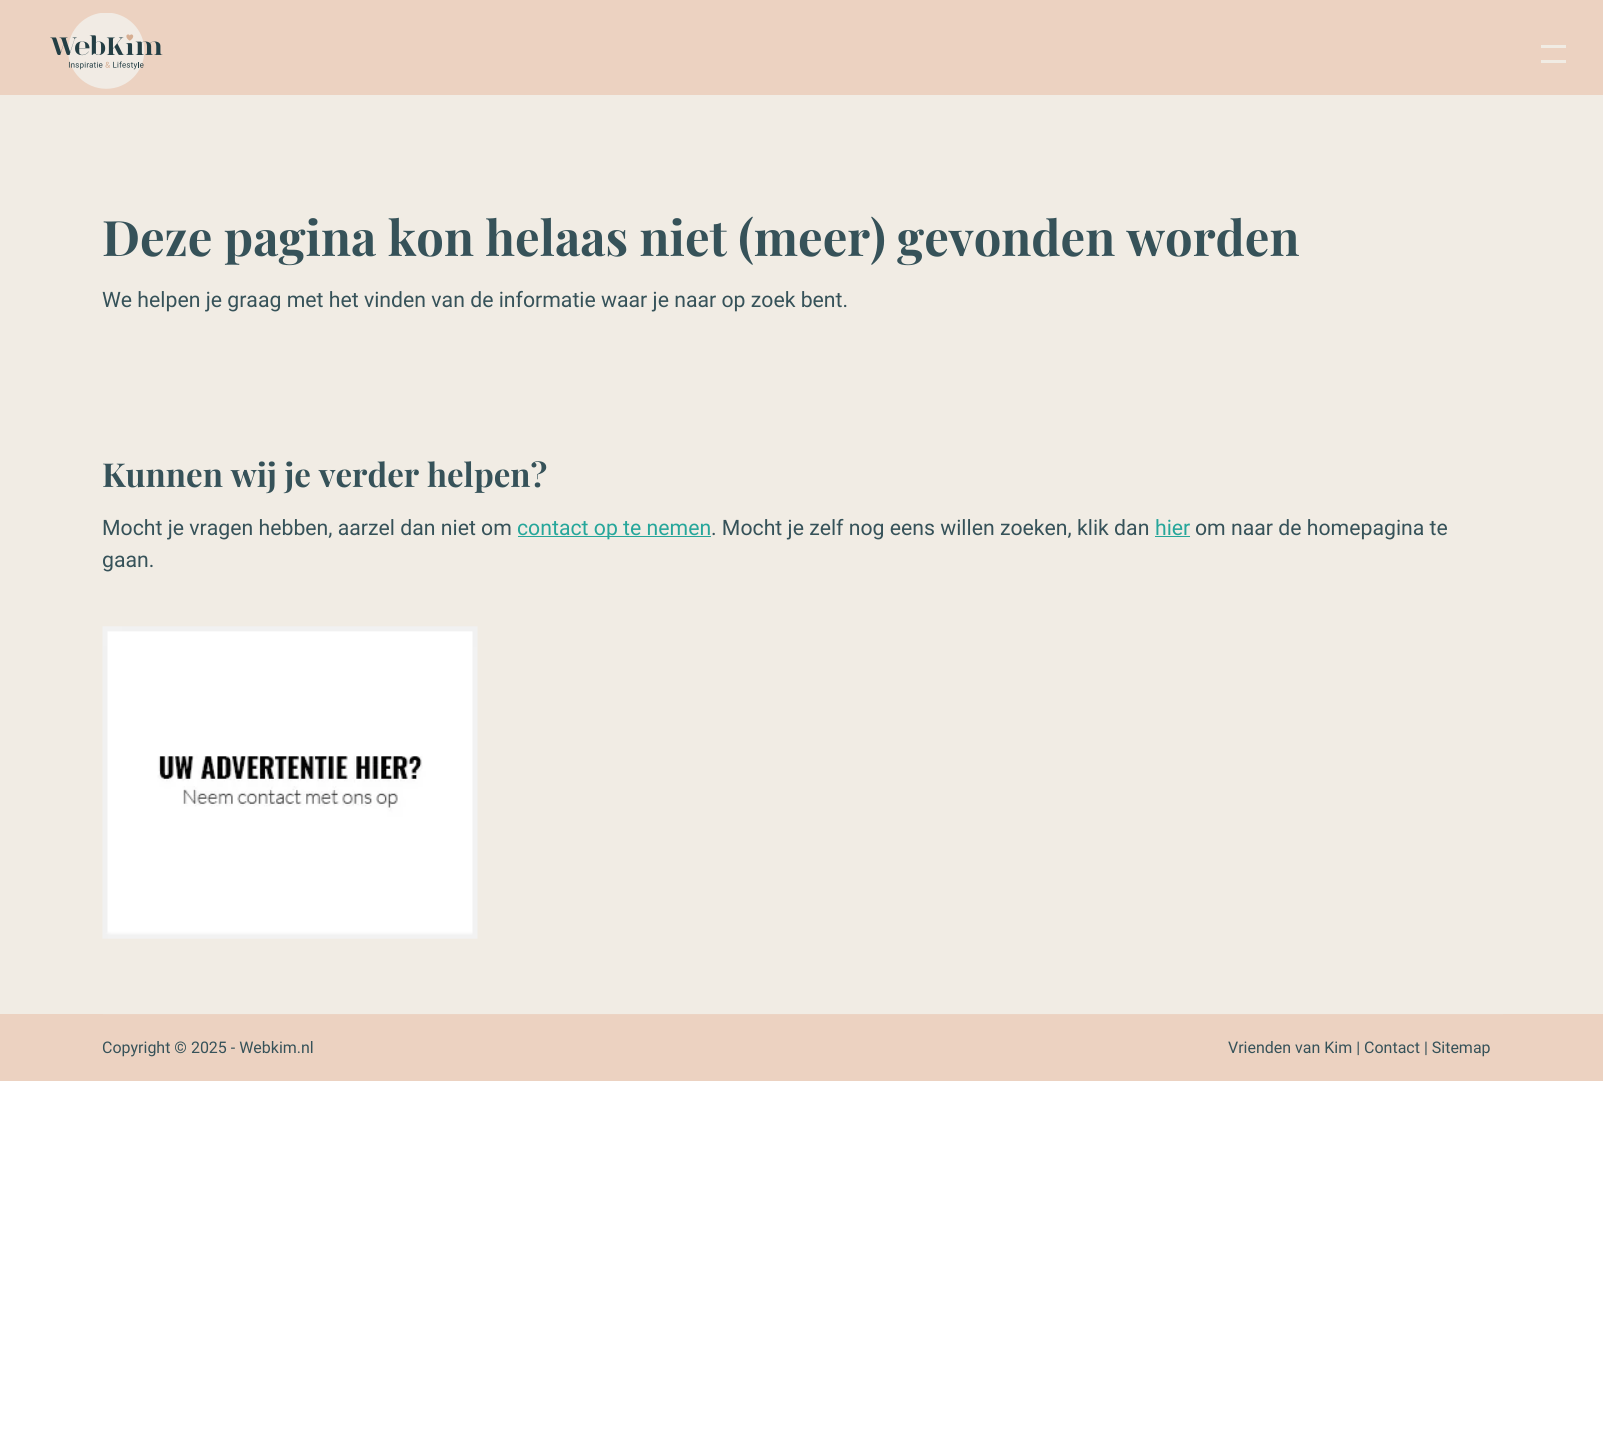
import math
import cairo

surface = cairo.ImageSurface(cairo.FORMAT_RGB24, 1603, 1447)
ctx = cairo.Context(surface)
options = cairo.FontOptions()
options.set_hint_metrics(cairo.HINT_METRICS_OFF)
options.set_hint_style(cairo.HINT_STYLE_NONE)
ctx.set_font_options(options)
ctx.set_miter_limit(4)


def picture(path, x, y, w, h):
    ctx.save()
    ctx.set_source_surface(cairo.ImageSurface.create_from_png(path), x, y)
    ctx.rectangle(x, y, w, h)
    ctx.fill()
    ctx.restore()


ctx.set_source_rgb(1, 1, 1)
ctx.paint()
ctx.set_source_rgb(0.922, 0.824, 0.757)
ctx.rectangle(0, 0, 1603, 95)
ctx.fill()
picture("img1.png", 50, 13, 113, 76)
ctx.set_source_rgb(0.945, 0.922, 0.894)
ctx.rectangle(1541, 45, 25, 3)
ctx.fill()
ctx.rectangle(1541, 60, 25, 3)
ctx.fill()
ctx.rectangle(0, 95, 1603, 919)
ctx.fill()
ctx.select_font_face("Playfair Display", cairo.FONT_SLANT_NORMAL, cairo.FONT_WEIGHT_BOLD)
ctx.set_font_size(48.9)
ctx.set_source_rgb(0.212, 0.322, 0.349)
ctx.move_to(102, 256)
ctx.show_text("Deze pagina kon helaas niet (meer) gevonden worden")
ctx.select_font_face("Roboto")
ctx.set_font_size(21.25)
ctx.move_to(102, 307)
ctx.show_text("We helpen je graag met het vinden van de informatie waar je naar op zoek bent.")
ctx.select_font_face("Playfair Display", cairo.FONT_SLANT_NORMAL, cairo.FONT_WEIGHT_BOLD)
ctx.set_font_size(33)
ctx.move_to(102, 487)
ctx.show_text("Kunnen wij je verder helpen?")
ctx.select_font_face("Roboto")
ctx.set_font_size(21.25)
ctx.move_to(102, 535)
ctx.show_text("Mocht je vragen hebben, aarzel dan niet om")
ctx.set_source_rgb(0.149, 0.651, 0.604)
ctx.rectangle(518, 536, 193, 1)
ctx.fill()
ctx.move_to(517, 535)
ctx.show_text("contact op te nemen")
ctx.set_source_rgb(0.212, 0.322, 0.349)
ctx.move_to(711, 535)
ctx.show_text(". Mocht je zelf nog eens willen zoeken, klik dan")
ctx.set_source_rgb(0.149, 0.651, 0.604)
ctx.move_to(1155, 535)
ctx.show_text("hier")
ctx.rectangle(1155, 536, 35, 1)
ctx.fill()
ctx.set_source_rgb(0.212, 0.322, 0.349)
ctx.move_to(1195, 535)
ctx.show_text("om naar de homepagina te")
ctx.move_to(102, 567)
ctx.show_text("gaan.")
picture("img2.png", 102, 626, 376, 313)
ctx.set_source_rgb(0.922, 0.824, 0.757)
ctx.rectangle(0, 1014, 1603, 67)
ctx.fill()
ctx.set_source_rgb(0.925, 0.831, 0.769)
ctx.rectangle(103, 1014, 1400, 1)
ctx.fill()
ctx.set_font_size(16)
ctx.set_source_rgb(0.212, 0.322, 0.349)
ctx.move_to(102, 1053)
ctx.show_text("Copyright © 2025 - Webkim.nl")
ctx.move_to(1228, 1053)
ctx.show_text("Vrienden van Kim | Contact | Sitemap")
surface.write_to_png("page.png")
